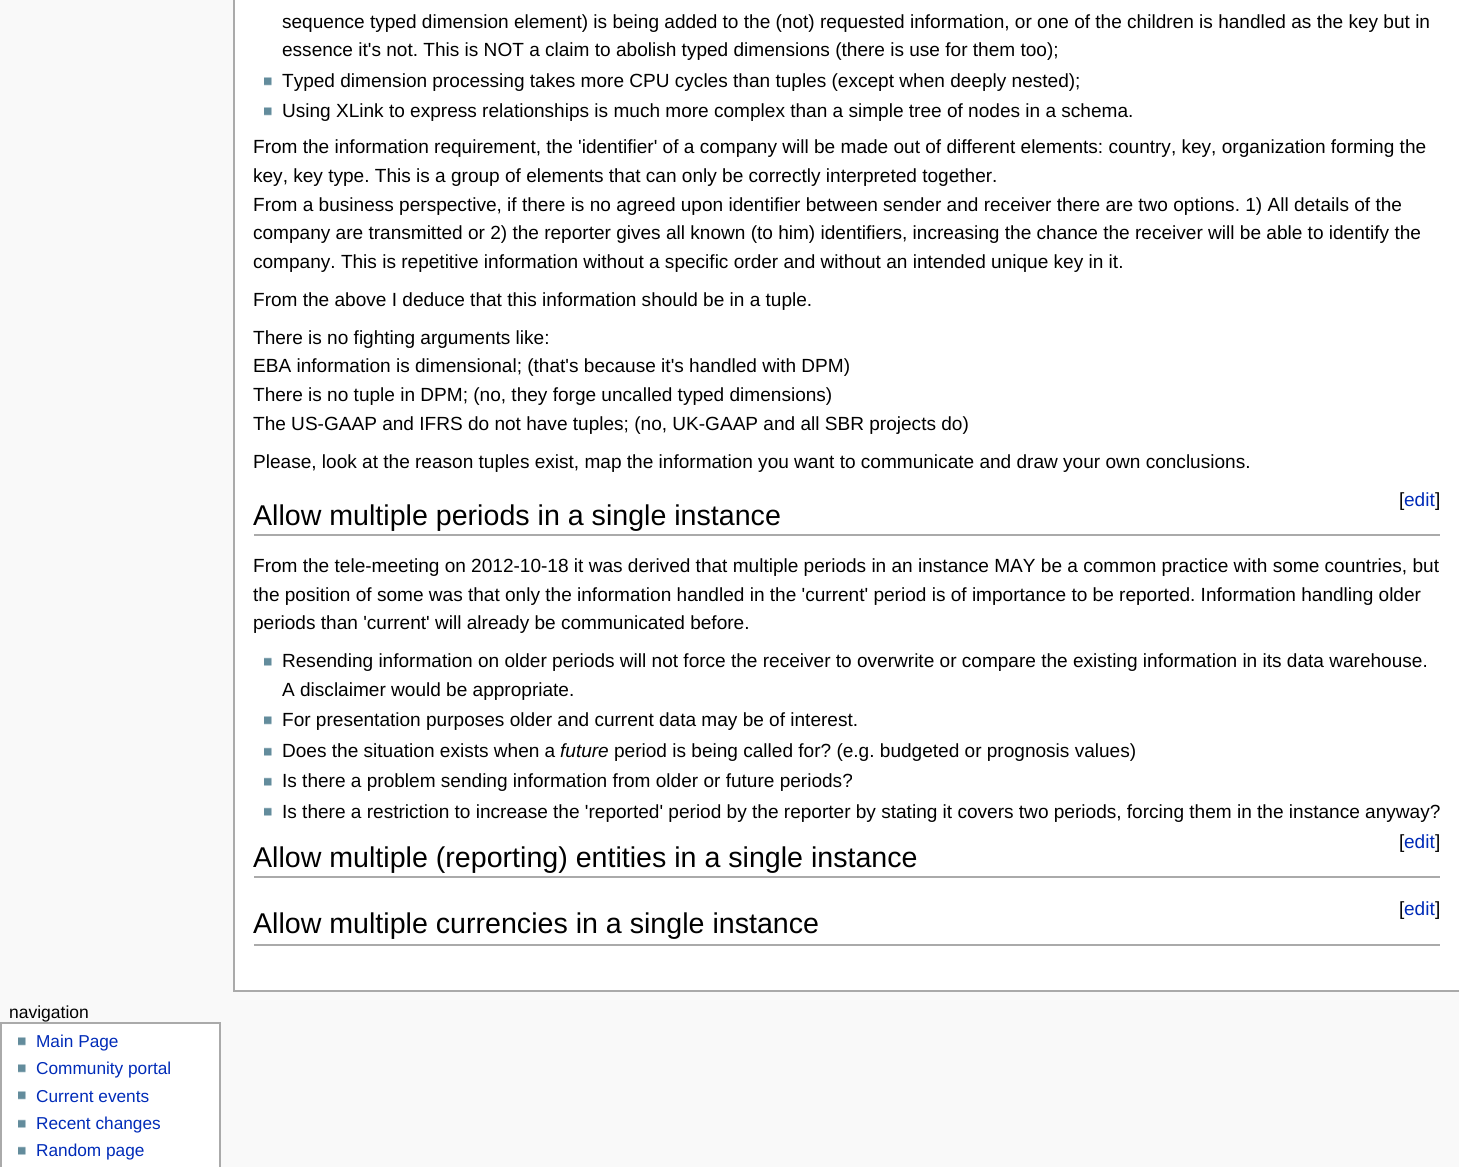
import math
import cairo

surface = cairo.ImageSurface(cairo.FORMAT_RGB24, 1459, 1167)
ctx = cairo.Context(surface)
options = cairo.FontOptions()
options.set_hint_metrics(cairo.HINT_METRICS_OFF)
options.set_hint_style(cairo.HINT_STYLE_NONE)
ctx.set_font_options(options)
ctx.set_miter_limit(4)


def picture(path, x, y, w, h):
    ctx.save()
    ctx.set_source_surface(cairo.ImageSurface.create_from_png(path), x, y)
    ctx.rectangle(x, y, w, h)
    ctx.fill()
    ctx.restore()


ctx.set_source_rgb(0.976, 0.976, 0.976)
ctx.paint()
ctx.set_source_rgb(1, 1, 1)
ctx.rectangle(235, 0, 1224, 990)
ctx.fill()
ctx.set_source_rgb(0.667, 0.667, 0.667)
ctx.rectangle(233, 990, 1226, 2)
ctx.fill()
ctx.rectangle(233, 0, 2, 992)
ctx.fill()
ctx.select_font_face("Liberation Sans")
ctx.set_font_size(19.05)
ctx.set_source_rgb(0, 0, 0)
ctx.move_to(282, 28)
ctx.show_text("sequence typed dimension element) is being added to the (not) requested information, or one of the children is handled as the key but in")
ctx.move_to(282, 56)
ctx.show_text("essence it's not. This is NOT a claim to abolish typed dimensions (there is use for them too);")
picture("img1.png", 264, 77, 8, 9)
ctx.move_to(282, 87)
ctx.show_text("Typed dimension processing takes more CPU cycles than tuples (except when deeply nested);")
picture("img1.png", 264, 107, 8, 9)
ctx.move_to(282, 117)
ctx.show_text("Using XLink to express relationships is much more complex than a simple tree of nodes in a schema.")
ctx.move_to(253, 153)
ctx.show_text("From the information requirement, the 'identifier' of a company will be made out of different elements: country, key, organization forming the")
ctx.move_to(253, 182)
ctx.show_text("key, key type. This is a group of elements that can only be correctly interpreted together.")
ctx.move_to(253, 211)
ctx.show_text("From a business perspective, if there is no agreed upon identifier between sender and receiver there are two options. 1) All details of the")
ctx.move_to(253, 239)
ctx.show_text("company are transmitted or 2) the reporter gives all known (to him) identifiers, increasing the chance the receiver will be able to identify the")
ctx.move_to(253, 268)
ctx.show_text("company. This is repetitive information without a specific order and without an intended unique key in it.")
ctx.move_to(253, 306)
ctx.show_text("From the above I deduce that this information should be in a tuple.")
ctx.move_to(253, 344)
ctx.show_text("There is no fighting arguments like:")
ctx.move_to(253, 372)
ctx.show_text("EBA information is dimensional; (that's because it's handled with DPM)")
ctx.move_to(253, 401)
ctx.show_text("There is no tuple in DPM; (no, they forge uncalled typed dimensions)")
ctx.move_to(253, 430)
ctx.show_text("The US-GAAP and IFRS do not have tuples; (no, UK-GAAP and all SBR projects do)")
ctx.move_to(253, 468)
ctx.show_text("Please, look at the reason tuples exist, map the information you want to communicate and draw your own conclusions.")
ctx.move_to(1399, 506)
ctx.show_text("[")
ctx.set_source_rgb(0, 0.169, 0.722)
ctx.move_to(1404, 506)
ctx.show_text("edit")
ctx.set_source_rgb(0, 0, 0)
ctx.move_to(1435, 506)
ctx.show_text("]")
ctx.set_source_rgb(0.667, 0.667, 0.667)
ctx.rectangle(254, 534, 1186, 2)
ctx.fill()
ctx.set_font_size(28.6)
ctx.set_source_rgb(0, 0, 0)
ctx.move_to(253, 525)
ctx.show_text("Allow multiple periods in a single instance")
ctx.set_font_size(19.05)
ctx.move_to(253, 572)
ctx.show_text("From the tele-meeting on 2012-10-18 it was derived that multiple periods in an instance MAY be a common practice with some countries, but")
ctx.move_to(253, 601)
ctx.show_text("the position of some was that only the information handled in the 'current' period is of importance to be reported. Information handling older")
ctx.move_to(253, 629)
ctx.show_text("periods than 'current' will already be communicated before.")
picture("img2.png", 264, 657, 8, 9)
ctx.move_to(282, 667)
ctx.show_text("Resending information on older periods will not force the receiver to overwrite or compare the existing information in its data warehouse.")
ctx.move_to(282, 696)
ctx.show_text("A disclaimer would be appropriate.")
picture("img1.png", 264, 716, 8, 9)
ctx.move_to(282, 726)
ctx.show_text("For presentation purposes older and current data may be of interest.")
picture("img2.png", 264, 747, 8, 9)
ctx.move_to(282, 757)
ctx.show_text("Does the situation exists when a")
ctx.select_font_face("Liberation Sans", cairo.FONT_SLANT_ITALIC)
ctx.move_to(560, 757)
ctx.show_text("future")
ctx.select_font_face("Liberation Sans")
ctx.move_to(614, 757)
ctx.show_text("period is being called for? (e.g. budgeted or prognosis values)")
picture("img2.png", 264, 777, 8, 9)
ctx.move_to(282, 787)
ctx.show_text("Is there a problem sending information from older or future periods?")
picture("img2.png", 264, 807, 8, 9)
ctx.move_to(282, 818)
ctx.show_text("Is there a restriction to increase the 'reported' period by the reporter by stating it covers two periods, forcing them in the instance anyway?")
ctx.move_to(1399, 848)
ctx.show_text("[")
ctx.set_source_rgb(0, 0.169, 0.722)
ctx.move_to(1404, 848)
ctx.show_text("edit")
ctx.set_source_rgb(0, 0, 0)
ctx.move_to(1435, 848)
ctx.show_text("]")
ctx.set_source_rgb(0.667, 0.667, 0.667)
ctx.rectangle(254, 876, 1186, 2)
ctx.fill()
ctx.set_font_size(28.6)
ctx.set_source_rgb(0, 0, 0)
ctx.move_to(253, 867)
ctx.show_text("Allow multiple (reporting) entities in a single instance")
ctx.set_font_size(19.05)
ctx.move_to(1399, 915)
ctx.show_text("[")
ctx.set_source_rgb(0, 0.169, 0.722)
ctx.move_to(1404, 915)
ctx.show_text("edit")
ctx.set_source_rgb(0, 0, 0)
ctx.move_to(1435, 915)
ctx.show_text("]")
ctx.set_source_rgb(0.667, 0.667, 0.667)
ctx.rectangle(254, 944, 1186, 2)
ctx.fill()
ctx.set_font_size(28.6)
ctx.set_source_rgb(0, 0, 0)
ctx.move_to(253, 933)
ctx.show_text("Allow multiple currencies in a single instance")
ctx.set_font_size(17.5)
ctx.move_to(9, 1018)
ctx.show_text("navigation")
ctx.set_source_rgb(1, 1, 1)
ctx.rectangle(1, 1023, 219, 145)
ctx.fill_preserve()
ctx.set_source_rgb(0.667, 0.667, 0.667)
ctx.stroke()
picture("img1.png", 18, 1037, 8, 9)
ctx.set_font_size(17.25)
ctx.set_source_rgb(0, 0.169, 0.722)
ctx.move_to(36, 1047)
ctx.show_text("Main Page")
picture("img1.png", 18, 1064, 8, 9)
ctx.move_to(36, 1074)
ctx.show_text("Community portal")
picture("img1.png", 18, 1091, 8, 9)
ctx.move_to(36, 1102)
ctx.show_text("Current events")
picture("img2.png", 18, 1119, 8, 9)
ctx.move_to(36, 1129)
ctx.show_text("Recent changes")
picture("img2.png", 18, 1146, 8, 9)
ctx.move_to(36, 1156)
ctx.show_text("Random page")
surface.write_to_png("page.png")
